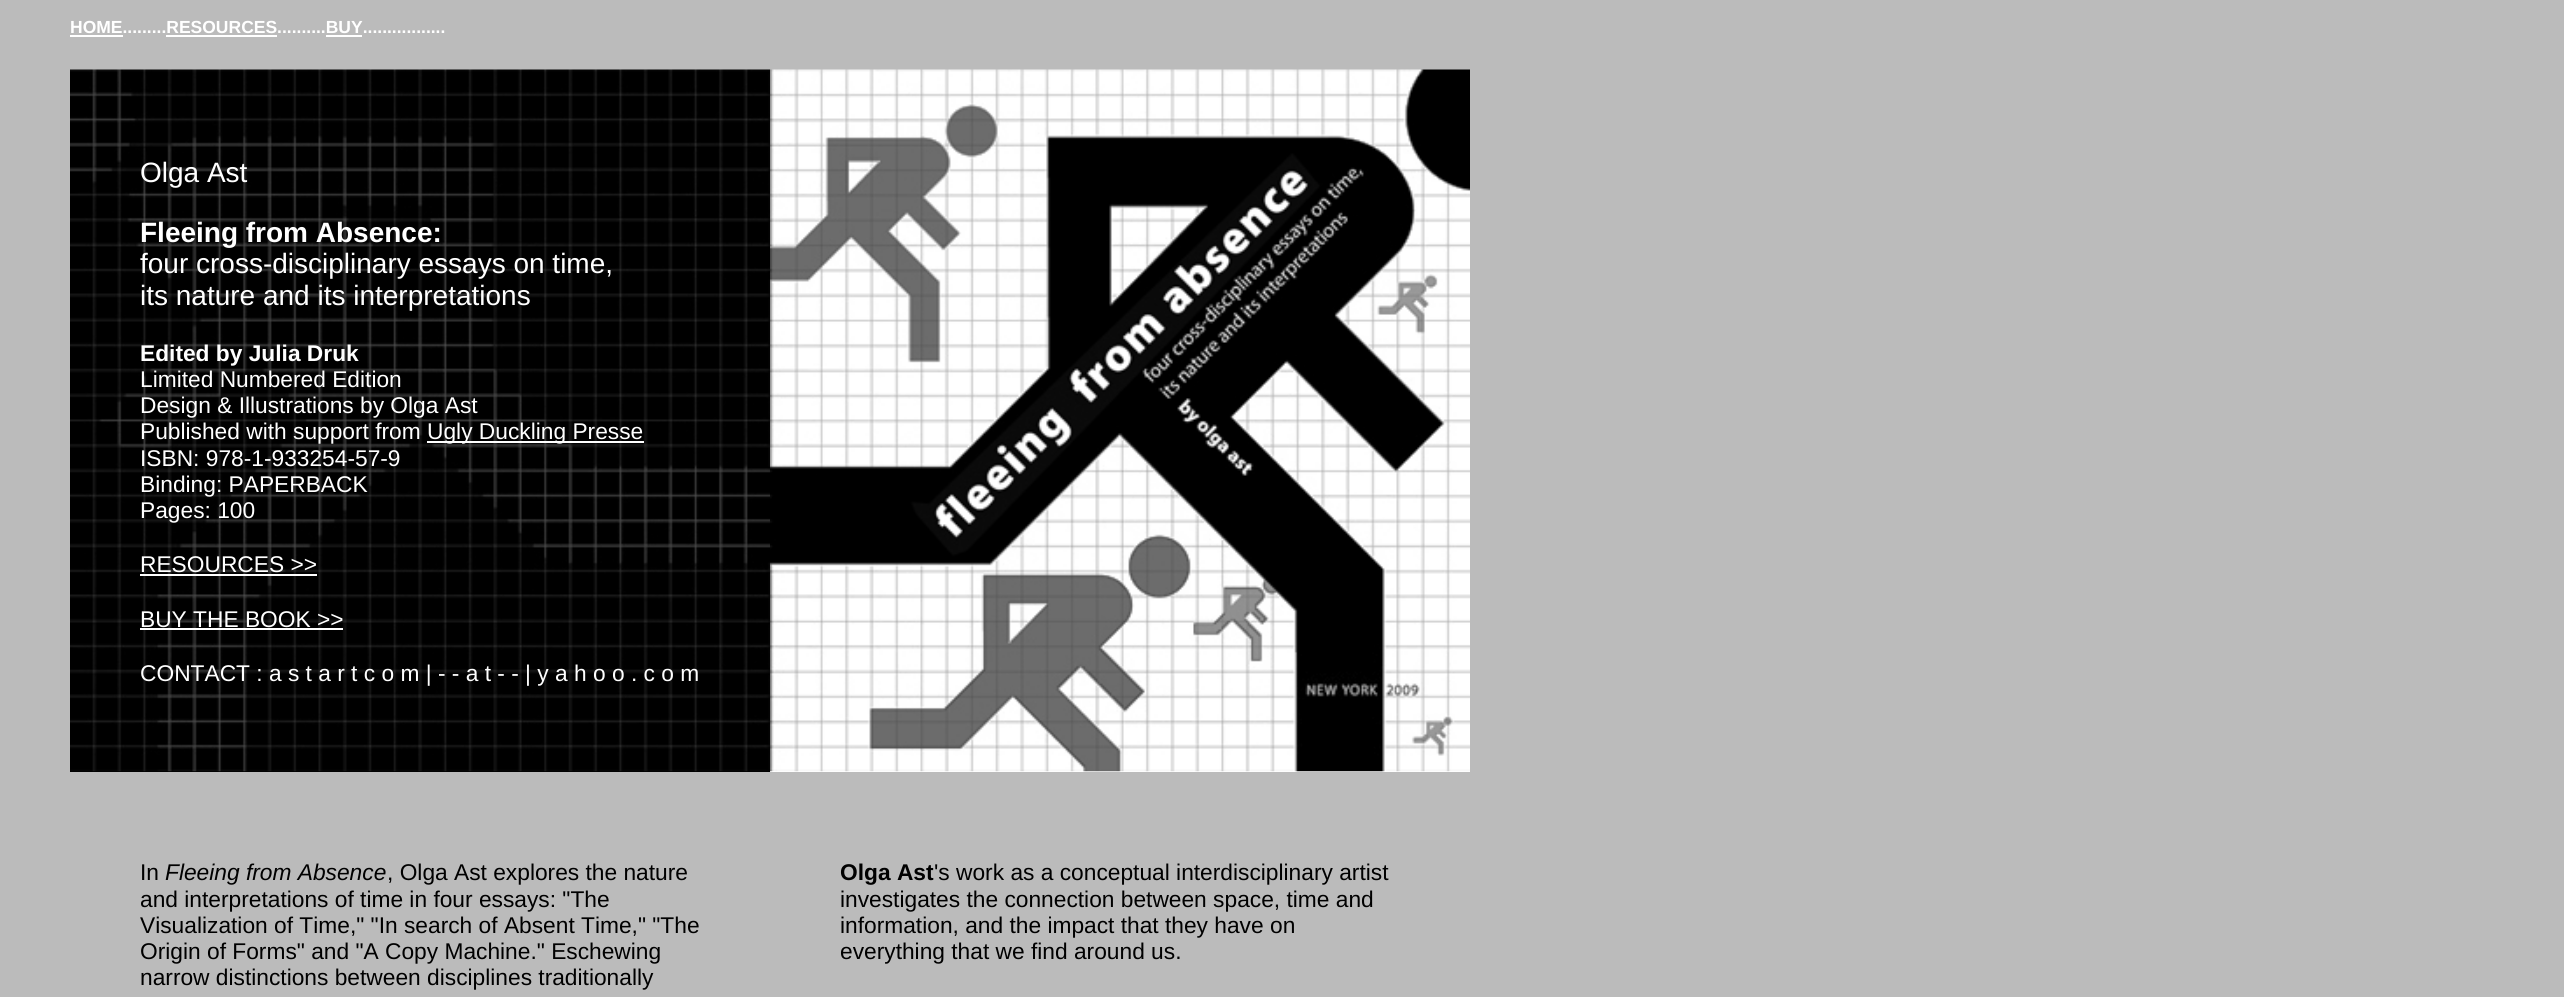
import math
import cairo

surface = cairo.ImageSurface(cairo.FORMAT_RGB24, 2564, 997)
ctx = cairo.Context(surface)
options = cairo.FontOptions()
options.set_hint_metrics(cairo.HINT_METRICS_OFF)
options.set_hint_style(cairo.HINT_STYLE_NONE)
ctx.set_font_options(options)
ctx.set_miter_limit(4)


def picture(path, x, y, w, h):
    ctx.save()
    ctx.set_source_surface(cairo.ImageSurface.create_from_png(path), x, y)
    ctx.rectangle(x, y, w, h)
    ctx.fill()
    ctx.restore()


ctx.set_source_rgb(0.733, 0.733, 0.733)
ctx.paint()
ctx.select_font_face("Liberation Sans", cairo.FONT_SLANT_NORMAL, cairo.FONT_WEIGHT_BOLD)
ctx.set_font_size(17.5)
ctx.set_source_rgb(1, 1, 1)
ctx.move_to(70, 33)
ctx.show_text("HOME.........RESOURCES..........BUY.................")
ctx.rectangle(70, 35, 53, 2)
ctx.fill()
ctx.rectangle(166, 35, 111, 2)
ctx.fill()
ctx.rectangle(326, 35, 36, 2)
ctx.fill()
ctx.set_source_rgb(0, 0, 0)
ctx.rectangle(70, 771, 700, 1)
ctx.fill()
picture("img1.png", 70, 69, 700, 703)
ctx.select_font_face("Liberation Sans")
ctx.set_font_size(28)
ctx.set_source_rgb(1, 1, 1)
ctx.move_to(140, 182)
ctx.show_text("Olga Ast")
ctx.select_font_face("Liberation Sans", cairo.FONT_SLANT_NORMAL, cairo.FONT_WEIGHT_BOLD)
ctx.move_to(140, 242)
ctx.show_text("Fleeing from Absence:")
ctx.select_font_face("Liberation Sans")
ctx.move_to(140, 273)
ctx.show_text("four cross-disciplinary essays on time,")
ctx.move_to(140, 305)
ctx.show_text("its nature and its interpretations")
ctx.select_font_face("Liberation Sans", cairo.FONT_SLANT_NORMAL, cairo.FONT_WEIGHT_BOLD)
ctx.set_font_size(22.75)
ctx.move_to(140, 361)
ctx.show_text("Edited by Julia Druk")
ctx.select_font_face("Liberation Sans")
ctx.move_to(140, 387)
ctx.show_text("Limited Numbered Edition")
ctx.move_to(140, 413)
ctx.show_text("Design & Illustrations by Olga Ast")
ctx.move_to(140, 439)
ctx.show_text("Published with support from")
ctx.rectangle(427, 441, 217, 2)
ctx.fill()
ctx.move_to(427, 439)
ctx.show_text("Ugly Duckling Presse")
ctx.move_to(140, 466)
ctx.show_text("ISBN: 978-1-933254-57-9")
ctx.move_to(140, 492)
ctx.show_text("Binding: PAPERBACK")
ctx.move_to(140, 518)
ctx.show_text("Pages: 100")
ctx.move_to(140, 572)
ctx.show_text("RESOURCES >>")
ctx.rectangle(140, 574, 177, 2)
ctx.fill()
ctx.move_to(140, 627)
ctx.show_text("BUY THE BOOK >>")
ctx.rectangle(140, 628, 203, 2)
ctx.fill()
ctx.move_to(140, 681)
ctx.show_text("CONTACT : a s t a r t c o m | - - a t - - | y a h o o . c o m")
ctx.rectangle(770, 771, 700, 1)
ctx.fill()
picture("img2.png", 770, 69, 700, 703)
ctx.set_source_rgb(0, 0, 0)
ctx.move_to(140, 880)
ctx.show_text("In")
ctx.select_font_face("Liberation Sans", cairo.FONT_SLANT_ITALIC)
ctx.move_to(165, 880)
ctx.show_text("Fleeing from Absence")
ctx.select_font_face("Liberation Sans")
ctx.move_to(387, 880)
ctx.show_text(", Olga Ast explores the nature")
ctx.move_to(140, 907)
ctx.show_text("and interpretations of time in four essays: \"The")
ctx.move_to(140, 933)
ctx.show_text("Visualization of Time,\" \"In search of Absent Time,\" \"The")
ctx.move_to(140, 959)
ctx.show_text("Origin of Forms\" and \"A Copy Machine.\" Eschewing")
ctx.move_to(140, 985)
ctx.show_text("narrow distinctions between disciplines traditionally")
ctx.select_font_face("Liberation Sans", cairo.FONT_SLANT_NORMAL, cairo.FONT_WEIGHT_BOLD)
ctx.move_to(840, 880)
ctx.show_text("Olga Ast")
ctx.select_font_face("Liberation Sans")
ctx.move_to(934, 880)
ctx.show_text("'s work as a conceptual interdisciplinary artist")
ctx.move_to(840, 907)
ctx.show_text("investigates the connection between space, time and")
ctx.move_to(840, 933)
ctx.show_text("information, and the impact that they have on")
ctx.move_to(840, 959)
ctx.show_text("everything that we find around us.")
surface.write_to_png("page.png")
